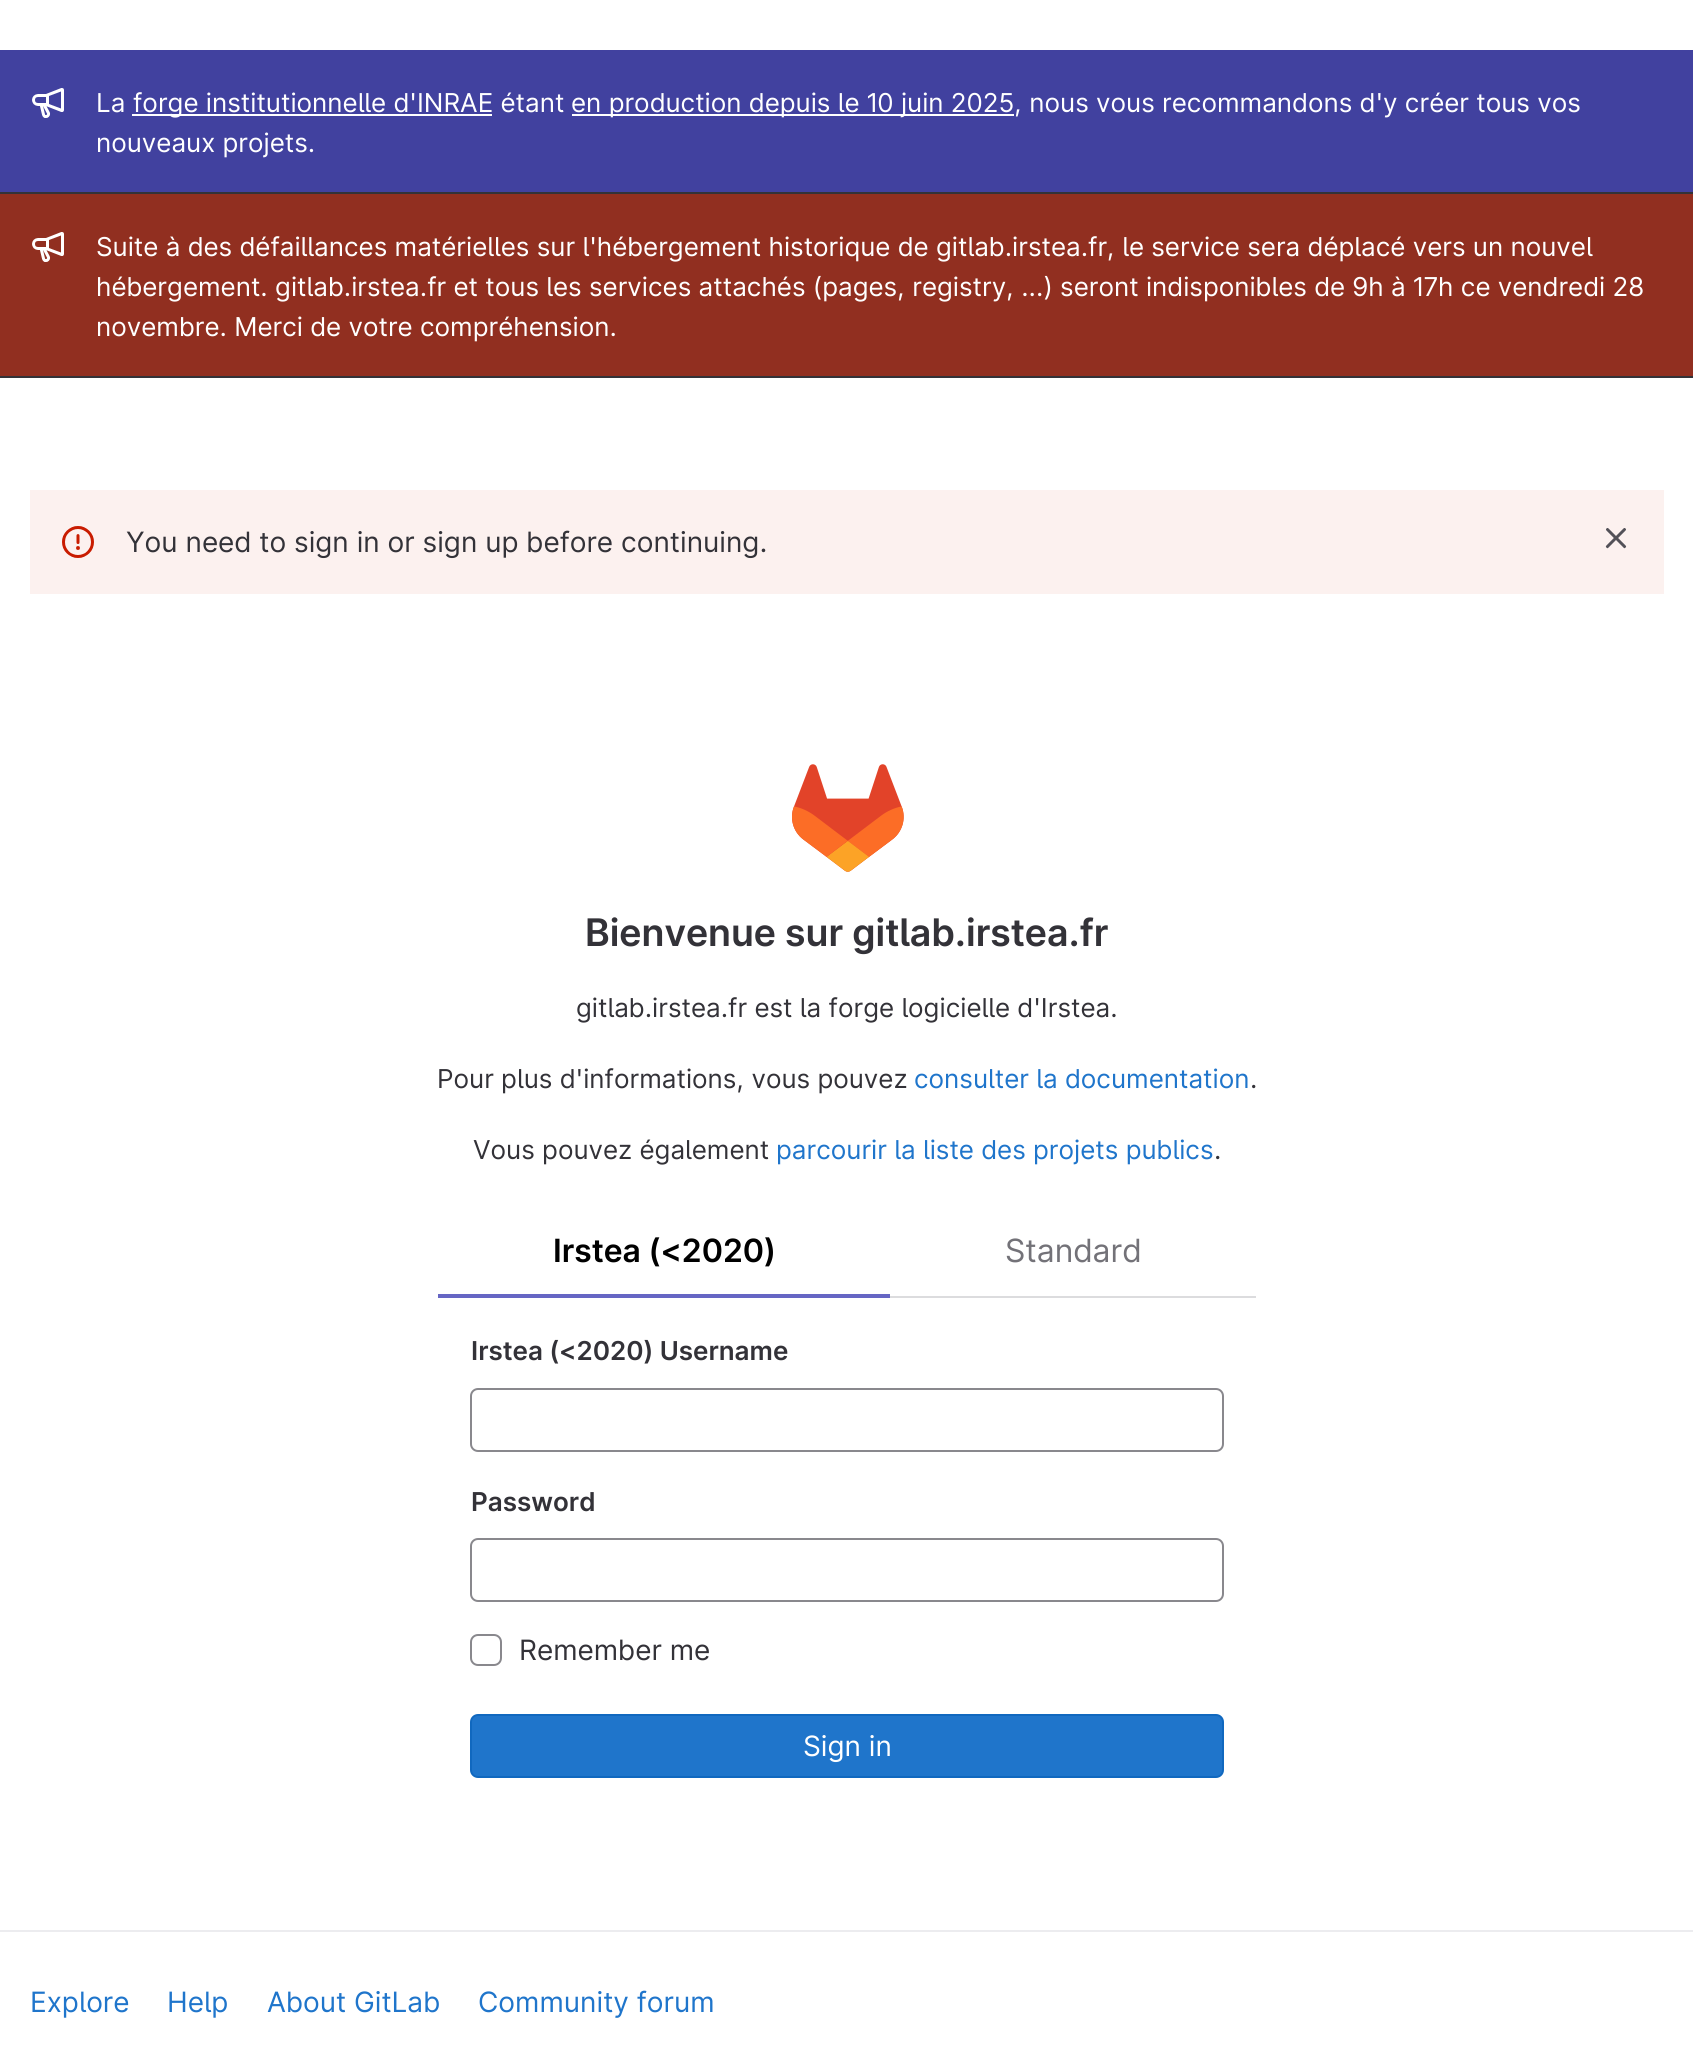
import math
import cairo

surface = cairo.ImageSurface(cairo.FORMAT_RGB24, 1693, 2060)
ctx = cairo.Context(surface)
options = cairo.FontOptions()
options.set_hint_metrics(cairo.HINT_METRICS_OFF)
options.set_hint_style(cairo.HINT_STYLE_NONE)
ctx.set_font_options(options)
ctx.set_miter_limit(4)


def round_rect(x, y, w, h, r):
    ctx.new_sub_path()
    for i, (u, v) in enumerate([(x + w - r, y + h - r), (x + r, y + h - r), (x + r, y + r), (x + w - r, y + r)]):
        ctx.arc(u, v, r, i * math.pi / 2, (i + 1) * math.pi / 2)
    ctx.close_path()


def picture(path, x, y, w, h):
    ctx.save()
    ctx.set_source_surface(cairo.ImageSurface.create_from_png(path), x, y)
    ctx.rectangle(x, y, w, h)
    ctx.fill()
    ctx.restore()


ctx.set_source_rgb(1, 1, 1)
ctx.paint()
ctx.set_source_rgb(0.255, 0.255, 0.624)
ctx.rectangle(0, 50, 1693, 142)
ctx.fill()
ctx.set_source_rgb(0.2, 0.196, 0.22)
ctx.rectangle(0, 192, 1693, 2)
ctx.fill()
picture("img1.png", 32, 88, 32, 30)
ctx.select_font_face("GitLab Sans")
ctx.set_font_size(26)
ctx.set_source_rgb(1, 1, 1)
ctx.move_to(96, 112)
ctx.show_text("La")
ctx.rectangle(132, 114, 360, 2)
ctx.fill()
ctx.move_to(133, 112)
ctx.show_text("forge institutionnelle d'INRAE étant")
ctx.rectangle(572, 114, 442, 2)
ctx.fill()
ctx.move_to(571, 112)
ctx.show_text("en production depuis le 10 juin 2025, nous vous recommandons d'y créer tous vos")
ctx.move_to(96, 152)
ctx.show_text("nouveaux projets.")
ctx.set_source_rgb(0.569, 0.184, 0.125)
ctx.rectangle(0, 194, 1693, 182)
ctx.fill()
ctx.set_source_rgb(0.2, 0.196, 0.22)
ctx.rectangle(0, 376, 1693, 2)
ctx.fill()
picture("img2.png", 32, 232, 32, 30)
ctx.set_source_rgb(1, 1, 1)
ctx.move_to(96, 256)
ctx.show_text("Suite à des défaillances matérielles sur l'hébergement historique de gitlab.irstea.fr, le service sera déplacé vers un nouvel")
ctx.move_to(96, 296)
ctx.show_text("hébergement. gitlab.irstea.fr et tous les services attachés (pages, registry, ...) seront indisponibles de 9h à 17h ce vendredi 28")
ctx.move_to(96, 336)
ctx.show_text("novembre. Merci de votre compréhension.")
ctx.set_source_rgb(0.988, 0.945, 0.937)
ctx.rectangle(30, 490, 1634, 104)
ctx.fill()
picture("img3.png", 62, 526, 32, 32)
ctx.set_font_size(28)
ctx.set_source_rgb(0.2, 0.196, 0.22)
ctx.move_to(126, 552)
ctx.show_text("You need to sign in or sign up before continuing.")
picture("img4.png", 1605, 528, 22, 21)
picture("img5.png", 792, 764, 112, 108)
ctx.select_font_face("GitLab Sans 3 SemiBold")
ctx.set_font_size(38)
ctx.move_to(585, 946)
ctx.show_text("Bienvenue sur gitlab.irstea.fr")
ctx.select_font_face("GitLab Sans")
ctx.set_font_size(26)
ctx.move_to(576, 1017)
ctx.show_text("gitlab.irstea.fr est la forge logicielle d'Irstea.")
ctx.move_to(437, 1088)
ctx.show_text("Pour plus d'informations, vous pouvez")
ctx.set_source_rgb(0.122, 0.459, 0.796)
ctx.move_to(914, 1088)
ctx.show_text("consulter la documentation")
ctx.set_source_rgb(0.2, 0.196, 0.22)
ctx.move_to(1250, 1088)
ctx.show_text(".")
ctx.move_to(473, 1159)
ctx.show_text("Vous pouvez également")
ctx.set_source_rgb(0.122, 0.459, 0.796)
ctx.move_to(776, 1159)
ctx.show_text("parcourir la liste des projets publics")
ctx.set_source_rgb(0.2, 0.196, 0.22)
ctx.move_to(1214, 1159)
ctx.show_text(".")
ctx.set_source_rgb(0.4, 0.4, 0.769)
ctx.rectangle(438, 1294, 452, 4)
ctx.fill()
ctx.select_font_face("GitLab Sans SemiBold")
ctx.set_font_size(32)
ctx.set_source_rgb(0, 0, 0)
ctx.move_to(553, 1262)
ctx.show_text("Irstea (<2020)")
ctx.set_source_rgb(0.863, 0.863, 0.871)
ctx.rectangle(890, 1296, 366, 2)
ctx.fill()
ctx.select_font_face("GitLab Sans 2")
ctx.set_source_rgb(0.451, 0.447, 0.471)
ctx.move_to(1005, 1262)
ctx.show_text("Standard")
ctx.select_font_face("GitLab Sans 2 SemiBold")
ctx.set_font_size(26)
ctx.set_source_rgb(0.2, 0.196, 0.22)
ctx.move_to(471, 1360)
ctx.show_text("Irstea (<2020) Username")
round_rect(471, 1389, 752, 62, 7)
ctx.set_source_rgb(0.537, 0.533, 0.553)
ctx.stroke()
ctx.set_source_rgb(0.2, 0.196, 0.22)
ctx.move_to(471, 1511)
ctx.show_text("Password")
round_rect(471, 1539, 752, 62, 7)
ctx.set_source_rgb(0.537, 0.533, 0.553)
ctx.stroke()
round_rect(471, 1635, 30, 30, 7)
ctx.stroke()
ctx.select_font_face("GitLab Sans")
ctx.set_font_size(28)
ctx.set_source_rgb(0.2, 0.196, 0.22)
ctx.move_to(519, 1660)
ctx.show_text("Remember me")
ctx.set_source_rgb(0.122, 0.459, 0.796)
round_rect(471, 1715, 752, 62, 7)
ctx.fill_preserve()
ctx.set_source_rgb(0.063, 0.408, 0.749)
ctx.stroke()
ctx.set_source_rgb(1, 1, 1)
ctx.move_to(803, 1756)
ctx.show_text("Sign in")
ctx.set_source_rgb(0.925, 0.925, 0.937)
ctx.rectangle(0, 1930, 1693, 2)
ctx.fill()
ctx.set_source_rgb(0.122, 0.459, 0.796)
ctx.move_to(30, 2012)
ctx.show_text("Explore")
ctx.move_to(167, 2012)
ctx.show_text("Help")
ctx.move_to(267, 2012)
ctx.show_text("About GitLab")
ctx.move_to(478, 2012)
ctx.show_text("Community forum")
surface.write_to_png("page.png")
